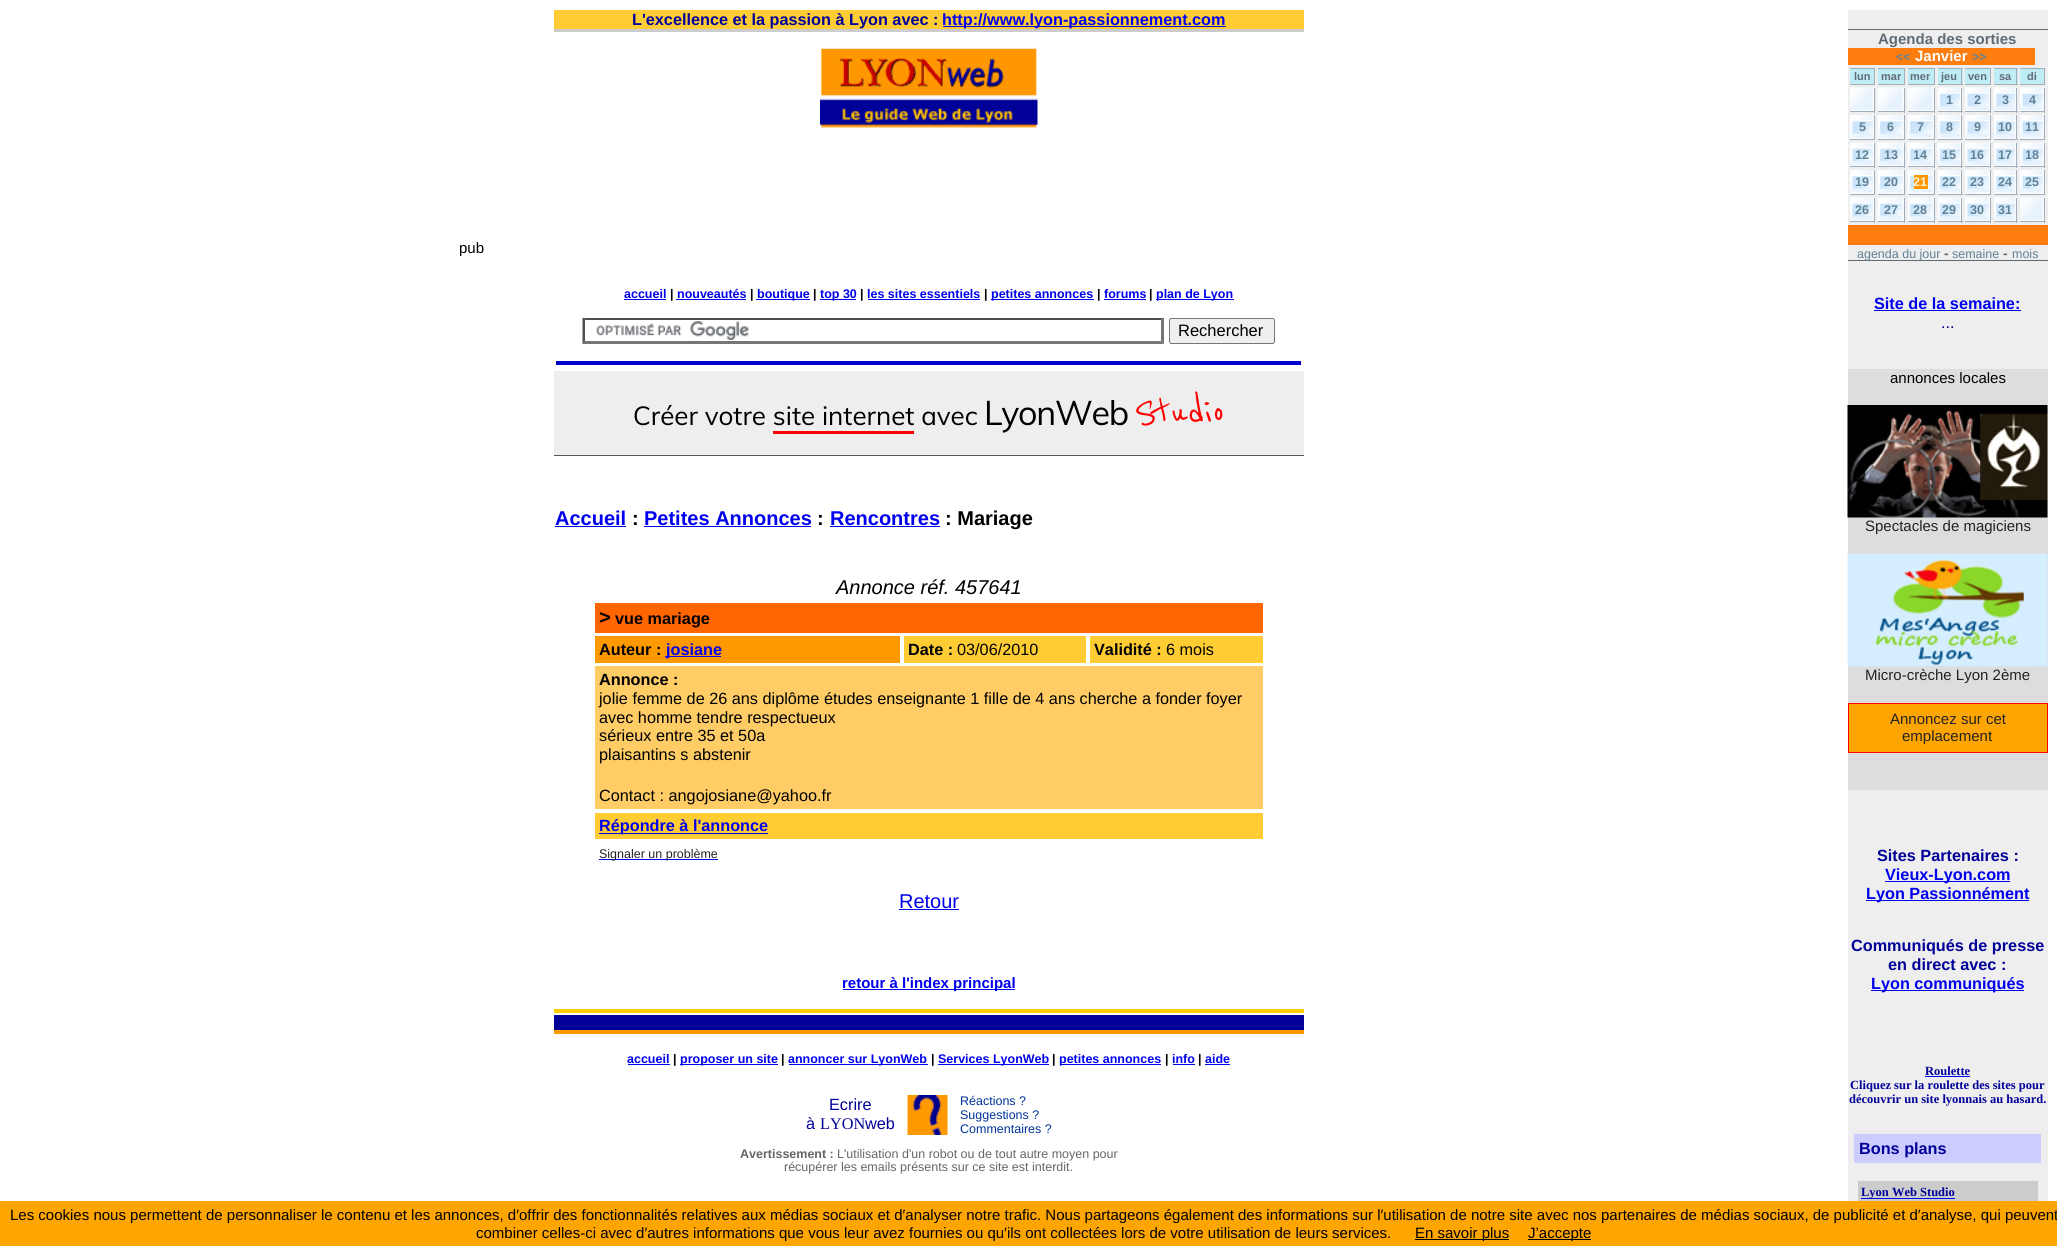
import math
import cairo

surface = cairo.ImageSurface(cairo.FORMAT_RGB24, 2057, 1246)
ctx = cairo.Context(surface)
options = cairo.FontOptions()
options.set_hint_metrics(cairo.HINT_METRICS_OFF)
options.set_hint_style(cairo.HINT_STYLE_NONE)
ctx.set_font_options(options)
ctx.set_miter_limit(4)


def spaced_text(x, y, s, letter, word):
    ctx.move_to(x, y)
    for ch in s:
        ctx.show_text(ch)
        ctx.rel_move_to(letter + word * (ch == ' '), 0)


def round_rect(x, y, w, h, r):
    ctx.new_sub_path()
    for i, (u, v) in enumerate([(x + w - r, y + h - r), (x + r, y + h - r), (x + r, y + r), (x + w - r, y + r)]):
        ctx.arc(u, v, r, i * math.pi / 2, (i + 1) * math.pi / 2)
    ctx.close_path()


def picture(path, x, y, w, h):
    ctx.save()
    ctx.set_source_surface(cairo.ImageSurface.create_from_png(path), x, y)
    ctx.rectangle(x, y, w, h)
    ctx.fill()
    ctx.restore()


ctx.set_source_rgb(1, 1, 1)
ctx.paint()
ctx.set_source_rgb(1, 0.8, 0.2)
ctx.rectangle(554, 10, 750, 19)
ctx.fill()
ctx.select_font_face("Liberation Sans", cairo.FONT_SLANT_NORMAL, cairo.FONT_WEIGHT_BOLD)
ctx.set_font_size(16.25)
ctx.set_source_rgb(0, 0, 0.6)
ctx.move_to(632, 25)
ctx.show_text("L'excellence et la passion à Lyon avec :")
ctx.set_source_rgb(0, 0, 0.933)
ctx.rectangle(943, 26, 283, 1)
ctx.fill()
ctx.move_to(942, 25)
ctx.show_text("http://www.lyon-passionnement.com")
ctx.set_source_rgb(0.8, 0.8, 0.8)
ctx.rectangle(554, 29, 750, 3)
ctx.fill()
picture("img1.png", 820, 48, 218, 80)
ctx.select_font_face("Liberation Sans")
ctx.set_font_size(15)
ctx.set_source_rgb(0, 0, 0)
ctx.move_to(459, 253)
ctx.show_text("pub")
ctx.select_font_face("Liberation Sans", cairo.FONT_SLANT_NORMAL, cairo.FONT_WEIGHT_BOLD)
ctx.set_font_size(12.5)
ctx.set_source_rgb(0, 0, 0.933)
ctx.move_to(624, 298)
ctx.show_text("accueil")
ctx.rectangle(624, 299, 42, 1)
ctx.fill()
ctx.set_source_rgb(0, 0, 0)
ctx.move_to(670, 298)
ctx.show_text("|")
ctx.set_source_rgb(0, 0, 0.933)
ctx.move_to(677, 298)
ctx.show_text("nouveautés")
ctx.rectangle(676, 299, 70, 1)
ctx.fill()
ctx.set_source_rgb(0, 0, 0)
ctx.move_to(750, 298)
ctx.show_text("|")
ctx.set_source_rgb(0, 0, 0.933)
ctx.rectangle(756, 299, 54, 1)
ctx.fill()
ctx.move_to(757, 298)
ctx.show_text("boutique")
ctx.set_source_rgb(0, 0, 0)
ctx.move_to(813, 298)
ctx.show_text("|")
ctx.set_source_rgb(0, 0, 0.933)
ctx.rectangle(820, 299, 36, 1)
ctx.fill()
ctx.move_to(820, 298)
ctx.show_text("top 30")
ctx.set_source_rgb(0, 0, 0)
ctx.move_to(860, 298)
ctx.show_text("|")
ctx.set_source_rgb(0, 0, 0.933)
ctx.move_to(867, 298)
ctx.show_text("les sites essentiels")
ctx.rectangle(868, 299, 112, 1)
ctx.fill()
ctx.set_source_rgb(0, 0, 0)
ctx.move_to(984, 298)
ctx.show_text("|")
ctx.set_source_rgb(0, 0, 0.933)
ctx.rectangle(991, 299, 103, 1)
ctx.fill()
ctx.move_to(991, 298)
ctx.show_text("petites annonces")
ctx.set_source_rgb(0, 0, 0)
ctx.move_to(1097, 298)
ctx.show_text("|")
ctx.set_source_rgb(0, 0, 0.933)
ctx.move_to(1104, 298)
ctx.show_text("forums")
ctx.rectangle(1104, 299, 42, 1)
ctx.fill()
ctx.set_source_rgb(0, 0, 0)
ctx.move_to(1149, 298)
ctx.show_text("|")
ctx.set_source_rgb(0, 0, 0.933)
ctx.rectangle(1156, 299, 78, 1)
ctx.fill()
ctx.move_to(1156, 298)
ctx.show_text("plan de Lyon")
picture("img2.png", 596, 321, 153, 19)
ctx.set_source_rgb(0.31, 0.31, 0.31)
ctx.new_path()
ctx.move_to(582, 318)
ctx.line_to(1164, 318)
ctx.line_to(1161, 320)
ctx.line_to(585, 320)
ctx.close_path()
ctx.fill()
ctx.set_source_rgb(0.463, 0.463, 0.463)
ctx.new_path()
ctx.move_to(1164, 317.5)
ctx.line_to(1164, 344)
ctx.line_to(1161, 341)
ctx.line_to(1161, 320)
ctx.close_path()
ctx.fill()
ctx.new_path()
ctx.move_to(1164, 344)
ctx.line_to(582, 344)
ctx.line_to(585, 341)
ctx.line_to(1161, 341)
ctx.close_path()
ctx.fill()
ctx.set_source_rgb(0.31, 0.31, 0.31)
ctx.new_path()
ctx.move_to(582.5, 344)
ctx.line_to(582.5, 317.5)
ctx.line_to(585, 320)
ctx.line_to(585, 341)
ctx.close_path()
ctx.fill()
ctx.set_source_rgb(0.937, 0.937, 0.937)
round_rect(1169.5, 318.5, 105, 25, 2)
ctx.fill_preserve()
ctx.set_source_rgb(0.463, 0.463, 0.463)
ctx.set_line_width(1)
ctx.stroke()
ctx.select_font_face("Liberation Sans")
ctx.set_font_size(16.5)
ctx.set_source_rgb(0, 0, 0)
ctx.move_to(1178, 336)
ctx.show_text("Rechercher")
ctx.set_source_rgb(0, 0, 0.8)
ctx.rectangle(556, 361, 745, 4)
ctx.fill()
ctx.set_source_rgb(0.933, 0.933, 0.933)
ctx.rectangle(554, 371, 750, 84)
ctx.fill()
ctx.set_source_rgb(0.333, 0.333, 0.333)
ctx.rectangle(554, 455, 750, 1)
ctx.fill()
ctx.select_font_face("Muli")
ctx.set_font_size(26)
ctx.set_source_rgb(0, 0, 0)
ctx.move_to(633, 425)
ctx.show_text("Créer votre site internet avec")
ctx.set_source_rgb(1, 0, 0)
ctx.rectangle(773, 431, 141, 3)
ctx.fill()
ctx.set_font_size(34)
ctx.set_source_rgb(0, 0, 0)
spaced_text(984, 425, "LyonWeb", -1.25, 0)
ctx.select_font_face("Reenie Beanie Medium")
ctx.set_font_size(47)
ctx.set_source_rgb(1, 0, 0)
ctx.move_to(1134, 425)
ctx.show_text("Studio")
ctx.select_font_face("Liberation Sans", cairo.FONT_SLANT_NORMAL, cairo.FONT_WEIGHT_BOLD)
ctx.set_font_size(20)
ctx.set_source_rgb(0, 0, 0.933)
ctx.move_to(555, 525)
ctx.show_text("Accueil")
ctx.rectangle(555, 526, 71, 1)
ctx.fill()
ctx.set_source_rgb(0, 0, 0)
ctx.move_to(632, 525)
ctx.show_text(":")
ctx.set_source_rgb(0, 0, 0.933)
ctx.move_to(644, 525)
ctx.show_text("Petites Annonces")
ctx.rectangle(644, 526, 167, 1)
ctx.fill()
ctx.set_source_rgb(0, 0, 0)
ctx.move_to(817, 525)
ctx.show_text(":")
ctx.set_source_rgb(0, 0, 0.933)
ctx.move_to(830, 525)
ctx.show_text("Rencontres")
ctx.rectangle(830, 526, 110, 1)
ctx.fill()
ctx.set_source_rgb(0, 0, 0)
ctx.move_to(945, 525)
ctx.show_text(": Mariage")
ctx.select_font_face("Liberation Sans", cairo.FONT_SLANT_ITALIC)
ctx.move_to(836, 594)
ctx.show_text("Annonce réf. 457641")
ctx.set_source_rgb(1, 0.4, 0)
ctx.rectangle(595, 603, 668, 30)
ctx.fill()
ctx.select_font_face("Liberation Sans", cairo.FONT_SLANT_NORMAL, cairo.FONT_WEIGHT_BOLD)
ctx.set_source_rgb(0, 0, 0)
ctx.move_to(599, 624)
ctx.show_text(">")
ctx.set_font_size(16.25)
ctx.move_to(615, 624)
ctx.show_text("vue mariage")
ctx.set_source_rgb(1, 0.6, 0)
ctx.rectangle(595, 636, 305, 27)
ctx.fill()
ctx.set_source_rgb(0, 0, 0)
ctx.move_to(599, 655)
ctx.show_text("Auteur :")
ctx.set_source_rgb(0, 0, 0.933)
ctx.rectangle(665, 656, 56, 1)
ctx.fill()
ctx.move_to(666, 655)
ctx.show_text("josiane")
ctx.set_source_rgb(1, 0.8, 0.2)
ctx.rectangle(904, 636, 182, 27)
ctx.fill()
ctx.set_source_rgb(0, 0, 0)
ctx.move_to(908, 655)
ctx.show_text("Date :")
ctx.select_font_face("Liberation Sans")
ctx.move_to(957, 655)
ctx.show_text("03/06/2010")
ctx.set_source_rgb(1, 0.8, 0.2)
ctx.rectangle(1090, 636, 173, 27)
ctx.fill()
ctx.select_font_face("Liberation Sans", cairo.FONT_SLANT_NORMAL, cairo.FONT_WEIGHT_BOLD)
ctx.set_source_rgb(0, 0, 0)
ctx.move_to(1094, 655)
ctx.show_text("Validité :")
ctx.select_font_face("Liberation Sans")
ctx.move_to(1166, 655)
ctx.show_text("6 mois")
ctx.set_source_rgb(1, 0.8, 0.4)
ctx.rectangle(595, 666, 668, 143)
ctx.fill()
ctx.select_font_face("Liberation Sans", cairo.FONT_SLANT_NORMAL, cairo.FONT_WEIGHT_BOLD)
ctx.set_source_rgb(0, 0, 0)
ctx.move_to(599, 685)
ctx.show_text("Annonce :")
ctx.select_font_face("Liberation Sans")
ctx.move_to(599, 704)
ctx.show_text("jolie femme de 26 ans diplôme études enseignante 1 fille de 4 ans cherche a fonder foyer")
ctx.move_to(599, 723)
ctx.show_text("avec homme tendre respectueux")
ctx.move_to(599, 741)
ctx.show_text("sérieux entre 35 et 50a")
ctx.move_to(599, 760)
ctx.show_text("plaisantins s abstenir")
ctx.move_to(599, 801)
ctx.show_text("Contact : angojosiane@yahoo.fr")
ctx.set_source_rgb(1, 0.8, 0.2)
ctx.rectangle(595, 813, 668, 26)
ctx.fill()
ctx.set_source_rgb(0, 0, 0.933)
ctx.rectangle(599, 833, 169, 1)
ctx.fill()
ctx.select_font_face("Liberation Sans", cairo.FONT_SLANT_NORMAL, cairo.FONT_WEIGHT_BOLD)
ctx.move_to(599, 831)
ctx.show_text("Répondre à l'annonce")
ctx.rectangle(599, 859, 119, 1)
ctx.fill()
ctx.select_font_face("Liberation Sans")
ctx.set_font_size(12.5)
ctx.set_source_rgb(0.133, 0.133, 0.133)
ctx.move_to(599, 858)
ctx.show_text("Signaler un problème")
ctx.set_font_size(20)
ctx.set_source_rgb(0, 0, 0.933)
ctx.move_to(899, 908)
ctx.show_text("Retour")
ctx.rectangle(899, 909, 60, 1)
ctx.fill()
ctx.rectangle(843, 989, 172, 1)
ctx.fill()
ctx.select_font_face("Liberation Sans", cairo.FONT_SLANT_NORMAL, cairo.FONT_WEIGHT_BOLD)
ctx.set_font_size(15)
ctx.move_to(842, 988)
ctx.show_text("retour à l'index principal")
ctx.set_source_rgb(1, 0.8, 0)
ctx.rectangle(554, 1009, 750, 4)
ctx.fill()
ctx.set_source_rgb(1, 1, 0.941)
ctx.rectangle(554, 1013, 750, 2)
ctx.fill()
ctx.set_source_rgb(0, 0, 0.6)
ctx.rectangle(554, 1015, 750, 15)
ctx.fill()
ctx.set_source_rgb(1, 0.6, 0)
ctx.rectangle(554, 1030, 750, 4)
ctx.fill()
ctx.set_font_size(12.5)
ctx.set_source_rgb(0, 0, 0.933)
ctx.move_to(627, 1063)
ctx.show_text("accueil")
ctx.rectangle(628, 1064, 42, 1)
ctx.fill()
ctx.set_source_rgb(0, 0, 0)
ctx.move_to(673, 1063)
ctx.show_text("|")
ctx.set_source_rgb(0, 0, 0.933)
ctx.rectangle(680, 1064, 98, 1)
ctx.fill()
ctx.move_to(680, 1063)
ctx.show_text("proposer un site")
ctx.set_source_rgb(0, 0, 0)
ctx.move_to(781, 1063)
ctx.show_text("|")
ctx.set_source_rgb(0, 0, 0.933)
ctx.rectangle(789, 1064, 139, 1)
ctx.fill()
ctx.move_to(788, 1063)
ctx.show_text("annoncer sur LyonWeb")
ctx.set_source_rgb(0, 0, 0)
ctx.move_to(931, 1063)
ctx.show_text("|")
ctx.set_source_rgb(0, 0, 0.933)
ctx.rectangle(938, 1064, 111, 1)
ctx.fill()
ctx.move_to(938, 1063)
ctx.show_text("Services LyonWeb")
ctx.set_source_rgb(0, 0, 0)
ctx.move_to(1052, 1063)
ctx.show_text("|")
ctx.set_source_rgb(0, 0, 0.933)
ctx.rectangle(1060, 1064, 101, 1)
ctx.fill()
ctx.move_to(1059, 1063)
ctx.show_text("petites annonces")
ctx.set_source_rgb(0, 0, 0)
ctx.move_to(1165, 1063)
ctx.show_text("|")
ctx.set_source_rgb(0, 0, 0.933)
ctx.move_to(1172, 1063)
ctx.show_text("info")
ctx.rectangle(1173, 1064, 22, 1)
ctx.fill()
ctx.set_source_rgb(0, 0, 0)
ctx.move_to(1198, 1063)
ctx.show_text("|")
ctx.set_source_rgb(0, 0, 0.933)
ctx.move_to(1205, 1063)
ctx.show_text("aide")
ctx.rectangle(1205, 1064, 25, 1)
ctx.fill()
ctx.select_font_face("Liberation Sans")
ctx.set_font_size(16.25)
ctx.set_source_rgb(0, 0, 0.6)
ctx.move_to(829, 1110)
ctx.show_text("Ecrire")
ctx.move_to(806, 1129)
ctx.show_text("à")
ctx.select_font_face("Liberation Serif")
ctx.move_to(820, 1129)
ctx.show_text("LYON")
ctx.select_font_face("Liberation Sans")
ctx.move_to(865, 1129)
ctx.show_text("web")
picture("img3.png", 907, 1095, 41, 40)
ctx.set_font_size(12.5)
ctx.set_source_rgb(0, 0.2, 0.6)
ctx.move_to(960, 1105)
ctx.show_text("Réactions ?")
ctx.move_to(960, 1119)
ctx.show_text("Suggestions ?")
ctx.move_to(960, 1133)
ctx.show_text("Commentaires ?")
ctx.select_font_face("Liberation Sans", cairo.FONT_SLANT_NORMAL, cairo.FONT_WEIGHT_BOLD)
ctx.set_source_rgb(0.4, 0.4, 0.4)
ctx.move_to(740, 1158)
ctx.show_text("Avertissement :")
ctx.select_font_face("Liberation Sans")
ctx.move_to(837, 1158)
ctx.show_text("L'utilisation d'un robot ou de tout autre moyen pour")
ctx.move_to(784, 1171)
ctx.show_text("récupérer les emails présents sur ce site est interdit.")
ctx.set_source_rgb(0.933, 0.933, 0.933)
ctx.rectangle(1848, 10, 200, 1191)
ctx.fill()
ctx.set_source_rgb(0.38, 0.42, 0.463)
ctx.rectangle(1848, 29, 200, 1)
ctx.fill()
ctx.rectangle(1848, 260, 200, 1)
ctx.fill()
ctx.select_font_face("Liberation Sans", cairo.FONT_SLANT_NORMAL, cairo.FONT_WEIGHT_BOLD)
ctx.set_font_size(15)
ctx.move_to(1878, 44)
ctx.show_text("Agenda des sorties")
ctx.set_source_rgb(1, 0.49, 0.055)
ctx.rectangle(1848, 48, 187, 17)
ctx.fill()
ctx.set_font_size(12.5)
ctx.set_source_rgb(0.376, 0.506, 0.58)
ctx.move_to(1896, 61)
ctx.show_text("<<")
ctx.set_font_size(15)
ctx.set_source_rgb(1, 1, 1)
ctx.move_to(1915, 61)
ctx.show_text("Janvier")
ctx.set_font_size(12.5)
ctx.set_source_rgb(0.376, 0.506, 0.58)
ctx.move_to(1972, 61)
ctx.show_text(">>")
ctx.set_source_rgb(0.745, 0.929, 0.961)
ctx.rectangle(1850, 69, 24, 15)
ctx.fill()
ctx.set_source_rgb(0.635, 0.678, 0.737)
ctx.rectangle(1850, 68, 25, 1)
ctx.fill()
ctx.rectangle(1874, 68, 1, 17)
ctx.fill()
ctx.rectangle(1850, 84, 25, 1)
ctx.fill()
ctx.set_font_size(11)
ctx.set_source_rgb(0.38, 0.42, 0.463)
ctx.move_to(1854, 80)
ctx.show_text("lun")
ctx.set_source_rgb(0.745, 0.929, 0.961)
ctx.rectangle(1878, 69, 26, 15)
ctx.fill()
ctx.set_source_rgb(0.635, 0.678, 0.737)
ctx.rectangle(1878, 68, 27, 1)
ctx.fill()
ctx.rectangle(1904, 68, 1, 17)
ctx.fill()
ctx.rectangle(1878, 84, 27, 1)
ctx.fill()
ctx.set_source_rgb(0.38, 0.42, 0.463)
ctx.move_to(1881, 80)
ctx.show_text("mar")
ctx.set_source_rgb(0.745, 0.929, 0.961)
ctx.rectangle(1908, 69, 26, 15)
ctx.fill()
ctx.set_source_rgb(0.635, 0.678, 0.737)
ctx.rectangle(1908, 68, 27, 1)
ctx.fill()
ctx.rectangle(1934, 68, 1, 17)
ctx.fill()
ctx.rectangle(1908, 84, 27, 1)
ctx.fill()
ctx.set_source_rgb(0.38, 0.42, 0.463)
ctx.move_to(1910, 80)
ctx.show_text("mer")
ctx.set_source_rgb(0.745, 0.929, 0.961)
ctx.rectangle(1938, 69, 25, 15)
ctx.fill()
ctx.set_source_rgb(0.635, 0.678, 0.737)
ctx.rectangle(1938, 68, 25, 1)
ctx.fill()
ctx.rectangle(1961, 68, 1, 17)
ctx.fill()
ctx.rectangle(1938, 84, 25, 1)
ctx.fill()
ctx.set_source_rgb(0.38, 0.42, 0.463)
ctx.move_to(1941, 80)
ctx.show_text("jeu")
ctx.set_source_rgb(0.745, 0.929, 0.961)
ctx.rectangle(1965, 69, 25, 15)
ctx.fill()
ctx.set_source_rgb(0.635, 0.678, 0.737)
ctx.rectangle(1965, 68, 26, 1)
ctx.fill()
ctx.rectangle(1990, 68, 1, 17)
ctx.fill()
ctx.rectangle(1965, 84, 26, 1)
ctx.fill()
ctx.set_source_rgb(0.38, 0.42, 0.463)
ctx.move_to(1968, 80)
ctx.show_text("ven")
ctx.set_source_rgb(0.745, 0.929, 0.961)
ctx.rectangle(1994, 69, 24, 15)
ctx.fill()
ctx.set_source_rgb(0.635, 0.678, 0.737)
ctx.rectangle(1994, 68, 24, 1)
ctx.fill()
ctx.rectangle(2016, 68, 1, 17)
ctx.fill()
ctx.rectangle(1994, 84, 24, 1)
ctx.fill()
ctx.set_source_rgb(0.38, 0.42, 0.463)
ctx.move_to(1999, 80)
ctx.show_text("sa")
ctx.set_source_rgb(0.745, 0.929, 0.961)
ctx.rectangle(2020, 69, 24, 15)
ctx.fill()
ctx.set_source_rgb(0.635, 0.678, 0.737)
ctx.rectangle(2020, 68, 25, 1)
ctx.fill()
ctx.rectangle(2044, 68, 1, 17)
ctx.fill()
ctx.rectangle(2020, 84, 25, 1)
ctx.fill()
ctx.set_source_rgb(0.38, 0.42, 0.463)
ctx.move_to(2027, 80)
ctx.show_text("di")
picture("img4.png", 1850, 87, 24, 24)
ctx.set_source_rgb(0.635, 0.678, 0.737)
ctx.rectangle(1874, 88, 1, 25)
ctx.fill()
ctx.rectangle(1850, 111, 25, 1)
ctx.fill()
picture("img5.png", 1877, 87, 27, 25)
ctx.rectangle(1904, 88, 1, 25)
ctx.fill()
ctx.rectangle(1878, 111, 27, 1)
ctx.fill()
picture("img5.png", 1907, 87, 27, 25)
ctx.rectangle(1934, 88, 1, 25)
ctx.fill()
ctx.rectangle(1908, 111, 27, 1)
ctx.fill()
picture("img6.png", 1937, 87, 25, 25)
ctx.rectangle(1961, 88, 1, 25)
ctx.fill()
ctx.rectangle(1938, 111, 25, 1)
ctx.fill()
picture("img7.png", 1939, 92, 21, 15)
ctx.set_font_size(12.5)
ctx.set_source_rgb(0.376, 0.506, 0.58)
ctx.move_to(1946, 104)
ctx.show_text("1")
picture("img8.png", 1965, 87, 25, 24)
ctx.set_source_rgb(0.635, 0.678, 0.737)
ctx.rectangle(1990, 88, 1, 25)
ctx.fill()
ctx.rectangle(1965, 111, 26, 1)
ctx.fill()
picture("img9.png", 1966, 92, 23, 15)
ctx.set_source_rgb(0.376, 0.506, 0.58)
ctx.move_to(1974, 104)
ctx.show_text("2")
picture("img10.png", 1993, 87, 24, 25)
ctx.set_source_rgb(0.635, 0.678, 0.737)
ctx.rectangle(2016, 88, 1, 25)
ctx.fill()
ctx.rectangle(1994, 111, 24, 1)
ctx.fill()
picture("img11.png", 1995, 92, 20, 15)
ctx.set_source_rgb(0.376, 0.506, 0.58)
ctx.move_to(2002, 104)
ctx.show_text("3")
picture("img12.png", 2020, 87, 24, 24)
ctx.set_source_rgb(0.635, 0.678, 0.737)
ctx.rectangle(2044, 88, 1, 25)
ctx.fill()
ctx.rectangle(2020, 111, 25, 1)
ctx.fill()
picture("img13.png", 2021, 92, 22, 15)
ctx.set_source_rgb(0.376, 0.506, 0.58)
ctx.move_to(2029, 104)
ctx.show_text("4")
picture("img14.png", 1850, 115, 24, 24)
ctx.set_source_rgb(0.635, 0.678, 0.737)
ctx.rectangle(1874, 115, 1, 25)
ctx.fill()
ctx.rectangle(1850, 139, 25, 1)
ctx.fill()
picture("img15.png", 1851, 120, 22, 14)
ctx.set_source_rgb(0.376, 0.506, 0.58)
ctx.move_to(1859, 131)
ctx.show_text("5")
picture("img16.png", 1877, 115, 27, 24)
ctx.set_source_rgb(0.635, 0.678, 0.737)
ctx.rectangle(1904, 115, 1, 25)
ctx.fill()
ctx.rectangle(1878, 139, 27, 1)
ctx.fill()
picture("img17.png", 1880, 120, 23, 14)
ctx.set_source_rgb(0.376, 0.506, 0.58)
ctx.move_to(1887, 131)
ctx.show_text("6")
picture("img16.png", 1907, 115, 27, 24)
ctx.set_source_rgb(0.635, 0.678, 0.737)
ctx.rectangle(1934, 115, 1, 25)
ctx.fill()
ctx.rectangle(1908, 139, 27, 1)
ctx.fill()
picture("img17.png", 1910, 120, 23, 14)
ctx.set_source_rgb(0.376, 0.506, 0.58)
ctx.move_to(1917, 131)
ctx.show_text("7")
picture("img18.png", 1937, 115, 24, 24)
ctx.set_source_rgb(0.635, 0.678, 0.737)
ctx.rectangle(1961, 115, 1, 25)
ctx.fill()
ctx.rectangle(1938, 139, 25, 1)
ctx.fill()
picture("img19.png", 1939, 120, 21, 14)
ctx.set_source_rgb(0.376, 0.506, 0.58)
ctx.move_to(1946, 131)
ctx.show_text("8")
picture("img20.png", 1965, 115, 25, 24)
ctx.set_source_rgb(0.635, 0.678, 0.737)
ctx.rectangle(1990, 115, 1, 25)
ctx.fill()
ctx.rectangle(1965, 139, 26, 1)
ctx.fill()
picture("img21.png", 1966, 120, 23, 14)
ctx.set_source_rgb(0.376, 0.506, 0.58)
ctx.move_to(1974, 131)
ctx.show_text("9")
picture("img22.png", 1993, 115, 23, 24)
ctx.set_source_rgb(0.635, 0.678, 0.737)
ctx.rectangle(2016, 115, 1, 25)
ctx.fill()
ctx.rectangle(1994, 139, 24, 1)
ctx.fill()
picture("img23.png", 1995, 120, 20, 14)
ctx.set_source_rgb(0.376, 0.506, 0.58)
ctx.move_to(1998, 131)
ctx.show_text("10")
picture("img24.png", 2020, 115, 24, 24)
ctx.set_source_rgb(0.635, 0.678, 0.737)
ctx.rectangle(2044, 115, 1, 25)
ctx.fill()
ctx.rectangle(2020, 139, 25, 1)
ctx.fill()
picture("img25.png", 2021, 120, 22, 14)
ctx.set_source_rgb(0.376, 0.506, 0.58)
ctx.move_to(2025, 131)
ctx.show_text("11")
picture("img4.png", 1850, 142, 24, 24)
ctx.set_source_rgb(0.635, 0.678, 0.737)
ctx.rectangle(1874, 143, 1, 25)
ctx.fill()
ctx.rectangle(1850, 166, 25, 1)
ctx.fill()
picture("img26.png", 1851, 147, 22, 15)
ctx.set_source_rgb(0.376, 0.506, 0.58)
ctx.move_to(1855, 159)
ctx.show_text("12")
picture("img5.png", 1877, 142, 27, 25)
ctx.set_source_rgb(0.635, 0.678, 0.737)
ctx.rectangle(1904, 143, 1, 25)
ctx.fill()
ctx.rectangle(1878, 166, 27, 1)
ctx.fill()
picture("img27.png", 1880, 147, 23, 15)
ctx.set_source_rgb(0.376, 0.506, 0.58)
ctx.move_to(1884, 159)
ctx.show_text("13")
picture("img5.png", 1907, 142, 27, 25)
ctx.set_source_rgb(0.635, 0.678, 0.737)
ctx.rectangle(1934, 143, 1, 25)
ctx.fill()
ctx.rectangle(1908, 166, 27, 1)
ctx.fill()
picture("img27.png", 1910, 147, 23, 15)
ctx.set_source_rgb(0.376, 0.506, 0.58)
ctx.move_to(1913, 159)
ctx.show_text("14")
picture("img6.png", 1937, 142, 25, 25)
ctx.set_source_rgb(0.635, 0.678, 0.737)
ctx.rectangle(1961, 143, 1, 25)
ctx.fill()
ctx.rectangle(1938, 166, 25, 1)
ctx.fill()
picture("img7.png", 1939, 147, 21, 15)
ctx.set_source_rgb(0.376, 0.506, 0.58)
ctx.move_to(1942, 159)
ctx.show_text("15")
picture("img8.png", 1965, 142, 25, 24)
ctx.set_source_rgb(0.635, 0.678, 0.737)
ctx.rectangle(1990, 143, 1, 25)
ctx.fill()
ctx.rectangle(1965, 166, 26, 1)
ctx.fill()
picture("img9.png", 1966, 147, 23, 15)
ctx.set_source_rgb(0.376, 0.506, 0.58)
ctx.move_to(1970, 159)
ctx.show_text("16")
picture("img10.png", 1993, 142, 24, 25)
ctx.set_source_rgb(0.635, 0.678, 0.737)
ctx.rectangle(2016, 143, 1, 25)
ctx.fill()
ctx.rectangle(1994, 166, 24, 1)
ctx.fill()
picture("img11.png", 1995, 147, 20, 15)
ctx.set_source_rgb(0.376, 0.506, 0.58)
ctx.move_to(1998, 159)
ctx.show_text("17")
picture("img12.png", 2020, 142, 24, 24)
ctx.set_source_rgb(0.635, 0.678, 0.737)
ctx.rectangle(2044, 143, 1, 25)
ctx.fill()
ctx.rectangle(2020, 166, 25, 1)
ctx.fill()
picture("img13.png", 2021, 147, 22, 15)
ctx.set_source_rgb(0.376, 0.506, 0.58)
ctx.move_to(2025, 159)
ctx.show_text("18")
picture("img14.png", 1850, 170, 24, 24)
ctx.set_source_rgb(0.635, 0.678, 0.737)
ctx.rectangle(1874, 170, 1, 25)
ctx.fill()
ctx.rectangle(1850, 194, 25, 1)
ctx.fill()
picture("img15.png", 1851, 175, 22, 14)
ctx.set_source_rgb(0.376, 0.506, 0.58)
ctx.move_to(1855, 186)
ctx.show_text("19")
picture("img16.png", 1877, 170, 27, 24)
ctx.set_source_rgb(0.635, 0.678, 0.737)
ctx.rectangle(1904, 170, 1, 25)
ctx.fill()
ctx.rectangle(1878, 194, 27, 1)
ctx.fill()
picture("img17.png", 1880, 175, 23, 14)
ctx.set_source_rgb(0.376, 0.506, 0.58)
ctx.move_to(1884, 186)
ctx.show_text("20")
picture("img16.png", 1907, 170, 27, 24)
ctx.set_source_rgb(0.635, 0.678, 0.737)
ctx.rectangle(1934, 170, 1, 25)
ctx.fill()
ctx.rectangle(1908, 194, 27, 1)
ctx.fill()
picture("img17.png", 1910, 175, 23, 14)
ctx.set_source_rgb(1, 0.596, 0)
ctx.rectangle(1914, 175, 14, 14)
ctx.fill()
ctx.set_source_rgb(0.965, 0.957, 0.855)
ctx.move_to(1913, 186)
ctx.show_text("21")
picture("img18.png", 1937, 170, 24, 24)
ctx.set_source_rgb(0.635, 0.678, 0.737)
ctx.rectangle(1961, 170, 1, 25)
ctx.fill()
ctx.rectangle(1938, 194, 25, 1)
ctx.fill()
picture("img19.png", 1939, 175, 21, 14)
ctx.set_source_rgb(0.376, 0.506, 0.58)
ctx.move_to(1942, 186)
ctx.show_text("22")
picture("img20.png", 1965, 170, 25, 24)
ctx.set_source_rgb(0.635, 0.678, 0.737)
ctx.rectangle(1990, 170, 1, 25)
ctx.fill()
ctx.rectangle(1965, 194, 26, 1)
ctx.fill()
picture("img21.png", 1966, 175, 23, 14)
ctx.set_source_rgb(0.376, 0.506, 0.58)
ctx.move_to(1970, 186)
ctx.show_text("23")
picture("img22.png", 1993, 170, 23, 24)
ctx.set_source_rgb(0.635, 0.678, 0.737)
ctx.rectangle(2016, 170, 1, 25)
ctx.fill()
ctx.rectangle(1994, 194, 24, 1)
ctx.fill()
picture("img23.png", 1995, 175, 20, 14)
ctx.set_source_rgb(0.376, 0.506, 0.58)
ctx.move_to(1998, 186)
ctx.show_text("24")
picture("img24.png", 2020, 170, 24, 24)
ctx.set_source_rgb(0.635, 0.678, 0.737)
ctx.rectangle(2044, 170, 1, 25)
ctx.fill()
ctx.rectangle(2020, 194, 25, 1)
ctx.fill()
picture("img25.png", 2021, 175, 22, 14)
ctx.set_source_rgb(0.376, 0.506, 0.58)
ctx.move_to(2025, 186)
ctx.show_text("25")
picture("img4.png", 1850, 197, 24, 24)
ctx.set_source_rgb(0.635, 0.678, 0.737)
ctx.rectangle(1874, 198, 1, 25)
ctx.fill()
ctx.rectangle(1850, 221, 25, 1)
ctx.fill()
picture("img26.png", 1851, 202, 22, 15)
ctx.set_source_rgb(0.376, 0.506, 0.58)
ctx.move_to(1855, 214)
ctx.show_text("26")
picture("img5.png", 1877, 197, 27, 25)
ctx.set_source_rgb(0.635, 0.678, 0.737)
ctx.rectangle(1904, 198, 1, 25)
ctx.fill()
ctx.rectangle(1878, 221, 27, 1)
ctx.fill()
picture("img27.png", 1880, 202, 23, 15)
ctx.set_source_rgb(0.376, 0.506, 0.58)
ctx.move_to(1884, 214)
ctx.show_text("27")
picture("img5.png", 1907, 197, 27, 25)
ctx.set_source_rgb(0.635, 0.678, 0.737)
ctx.rectangle(1934, 198, 1, 25)
ctx.fill()
ctx.rectangle(1908, 221, 27, 1)
ctx.fill()
picture("img27.png", 1910, 202, 23, 15)
ctx.set_source_rgb(0.376, 0.506, 0.58)
ctx.move_to(1913, 214)
ctx.show_text("28")
picture("img6.png", 1937, 197, 25, 25)
ctx.set_source_rgb(0.635, 0.678, 0.737)
ctx.rectangle(1961, 198, 1, 25)
ctx.fill()
ctx.rectangle(1938, 221, 25, 1)
ctx.fill()
picture("img7.png", 1939, 202, 21, 15)
ctx.set_source_rgb(0.376, 0.506, 0.58)
ctx.move_to(1942, 214)
ctx.show_text("29")
picture("img8.png", 1965, 197, 25, 24)
ctx.set_source_rgb(0.635, 0.678, 0.737)
ctx.rectangle(1990, 198, 1, 25)
ctx.fill()
ctx.rectangle(1965, 221, 26, 1)
ctx.fill()
picture("img9.png", 1966, 202, 23, 15)
ctx.set_source_rgb(0.376, 0.506, 0.58)
ctx.move_to(1970, 214)
ctx.show_text("30")
picture("img10.png", 1993, 197, 24, 25)
ctx.set_source_rgb(0.635, 0.678, 0.737)
ctx.rectangle(2016, 198, 1, 25)
ctx.fill()
ctx.rectangle(1994, 221, 24, 1)
ctx.fill()
picture("img11.png", 1995, 202, 20, 15)
ctx.set_source_rgb(0.376, 0.506, 0.58)
ctx.move_to(1998, 214)
ctx.show_text("31")
picture("img12.png", 2020, 197, 24, 24)
ctx.set_source_rgb(0.635, 0.678, 0.737)
ctx.rectangle(2044, 198, 1, 25)
ctx.fill()
ctx.rectangle(2020, 221, 25, 1)
ctx.fill()
ctx.set_source_rgb(1, 0.49, 0.055)
ctx.rectangle(1848, 225, 200, 20)
ctx.fill()
ctx.select_font_face("Liberation Sans")
ctx.set_source_rgb(0.376, 0.506, 0.58)
ctx.move_to(1857, 258)
ctx.show_text("agenda du jour")
ctx.select_font_face("Liberation Sans", cairo.FONT_SLANT_NORMAL, cairo.FONT_WEIGHT_BOLD)
ctx.set_font_size(14)
ctx.set_source_rgb(0.38, 0.42, 0.463)
ctx.move_to(1944, 258)
ctx.show_text("-")
ctx.select_font_face("Liberation Sans")
ctx.set_font_size(12.5)
ctx.set_source_rgb(0.376, 0.506, 0.58)
ctx.move_to(1952, 258)
ctx.show_text("semaine")
ctx.select_font_face("Liberation Sans", cairo.FONT_SLANT_NORMAL, cairo.FONT_WEIGHT_BOLD)
ctx.set_font_size(14)
ctx.set_source_rgb(0.38, 0.42, 0.463)
ctx.move_to(2003, 258)
ctx.show_text("-")
ctx.select_font_face("Liberation Sans")
ctx.set_font_size(12.5)
ctx.set_source_rgb(0.376, 0.506, 0.58)
ctx.move_to(2012, 258)
ctx.show_text("mois")
ctx.select_font_face("Liberation Sans", cairo.FONT_SLANT_NORMAL, cairo.FONT_WEIGHT_BOLD)
ctx.set_font_size(16.25)
ctx.set_source_rgb(0, 0, 0.933)
ctx.move_to(1874, 309)
ctx.show_text("Site de la semaine:")
ctx.rectangle(1874, 310, 147, 1)
ctx.fill()
ctx.select_font_face("Liberation Sans")
ctx.set_source_rgb(0, 0, 0.6)
ctx.move_to(1941, 328)
ctx.show_text("...")
ctx.set_source_rgb(0.867, 0.867, 0.867)
ctx.rectangle(1848, 369, 200, 421)
ctx.fill()
ctx.set_font_size(15)
ctx.set_source_rgb(0, 0, 0)
ctx.move_to(1890, 383)
ctx.show_text("annonces locales")
picture("img28.png", 1847, 405, 201, 113)
ctx.set_source_rgb(0.133, 0.133, 0.133)
ctx.move_to(1865, 531)
ctx.show_text("Spectacles de magiciens")
picture("img29.png", 1847, 553, 201, 114)
ctx.move_to(1865, 680)
ctx.show_text("Micro-crèche Lyon 2ème")
ctx.set_source_rgb(1, 0.647, 0)
ctx.rectangle(1848.5, 703.5, 199, 49)
ctx.fill_preserve()
ctx.set_source_rgb(1, 0, 0)
ctx.stroke()
ctx.set_source_rgb(0.133, 0.133, 0.133)
ctx.move_to(1890, 724)
ctx.show_text("Annoncez sur cet")
ctx.move_to(1902, 741)
ctx.show_text("emplacement")
ctx.select_font_face("Liberation Sans", cairo.FONT_SLANT_NORMAL, cairo.FONT_WEIGHT_BOLD)
ctx.set_font_size(16.25)
ctx.set_source_rgb(0, 0, 0.6)
ctx.move_to(1877, 861)
ctx.show_text("Sites Partenaires :")
ctx.set_source_rgb(0, 0, 0.933)
ctx.rectangle(1885, 881, 125, 1)
ctx.fill()
ctx.move_to(1885, 880)
ctx.show_text("Vieux-Lyon.com")
ctx.rectangle(1866, 900, 163, 1)
ctx.fill()
ctx.move_to(1866, 899)
ctx.show_text("Lyon Passionnément")
ctx.set_source_rgb(0, 0, 0.6)
ctx.move_to(1851, 951)
ctx.show_text("Communiqués de presse")
ctx.move_to(1888, 970)
ctx.show_text("en direct avec :")
ctx.set_source_rgb(0, 0, 0.933)
ctx.rectangle(1871, 990, 153, 1)
ctx.fill()
ctx.move_to(1871, 989)
ctx.show_text("Lyon communiqués")
ctx.select_font_face("Liberation Serif", cairo.FONT_SLANT_NORMAL, cairo.FONT_WEIGHT_BOLD)
ctx.set_font_size(12.5)
ctx.set_source_rgb(0, 0, 0.6)
ctx.move_to(1925, 1075)
ctx.show_text("Roulette")
ctx.set_source_rgb(0, 0, 0.933)
ctx.rectangle(1925, 1076, 45, 1)
ctx.fill()
ctx.set_source_rgb(0, 0, 0.6)
ctx.move_to(1850, 1089)
ctx.show_text("Cliquez sur la roulette des sites pour")
ctx.move_to(1849, 1103)
ctx.show_text("découvrir un site lyonnais au hasard.")
ctx.set_source_rgb(0.8, 0.8, 1)
ctx.rectangle(1854, 1134, 187, 29)
ctx.fill()
ctx.select_font_face("Liberation Sans", cairo.FONT_SLANT_NORMAL, cairo.FONT_WEIGHT_BOLD)
ctx.set_font_size(16.25)
ctx.set_source_rgb(0, 0, 0.6)
ctx.move_to(1859, 1154)
ctx.show_text("Bons plans")
ctx.set_source_rgb(0.8, 0.8, 0.8)
ctx.rectangle(1858, 1181, 180, 20)
ctx.fill()
ctx.set_source_rgb(0, 0, 0.933)
ctx.rectangle(1861, 1198, 94, 1)
ctx.fill()
ctx.select_font_face("Liberation Serif", cairo.FONT_SLANT_NORMAL, cairo.FONT_WEIGHT_BOLD)
ctx.set_font_size(12.5)
ctx.set_source_rgb(0, 0, 0.6)
ctx.move_to(1861, 1196)
ctx.show_text("Lyon Web Studio")
ctx.set_source_rgb(1, 0.647, 0)
ctx.rectangle(0, 1201, 2057, 45)
ctx.fill()
ctx.select_font_face("Liberation Sans")
ctx.set_font_size(15)
ctx.set_source_rgb(0, 0, 0)
ctx.move_to(10, 1220)
ctx.show_text("Les cookies nous permettent de personnaliser le contenu et les annonces, d′offrir des fonctionnalités relatives aux médias sociaux et d′analyser notre trafic. Nous partageons également des informations sur l′utilisation de notre site avec nos partenaires de médias sociaux, de publicité et d′analyse, qui peuvent")
ctx.move_to(476, 1238)
ctx.show_text("combiner celles-ci avec d′autres informations que vous leur avez fournies ou qu′ils ont collectées lors de votre utilisation de leurs services.")
ctx.rectangle(1415, 1239, 94, 1)
ctx.fill()
ctx.move_to(1415, 1238)
ctx.show_text("En savoir plus")
ctx.rectangle(1528, 1239, 63, 1)
ctx.fill()
ctx.move_to(1528, 1238)
ctx.show_text("J’accepte")
surface.write_to_png("page.png")
